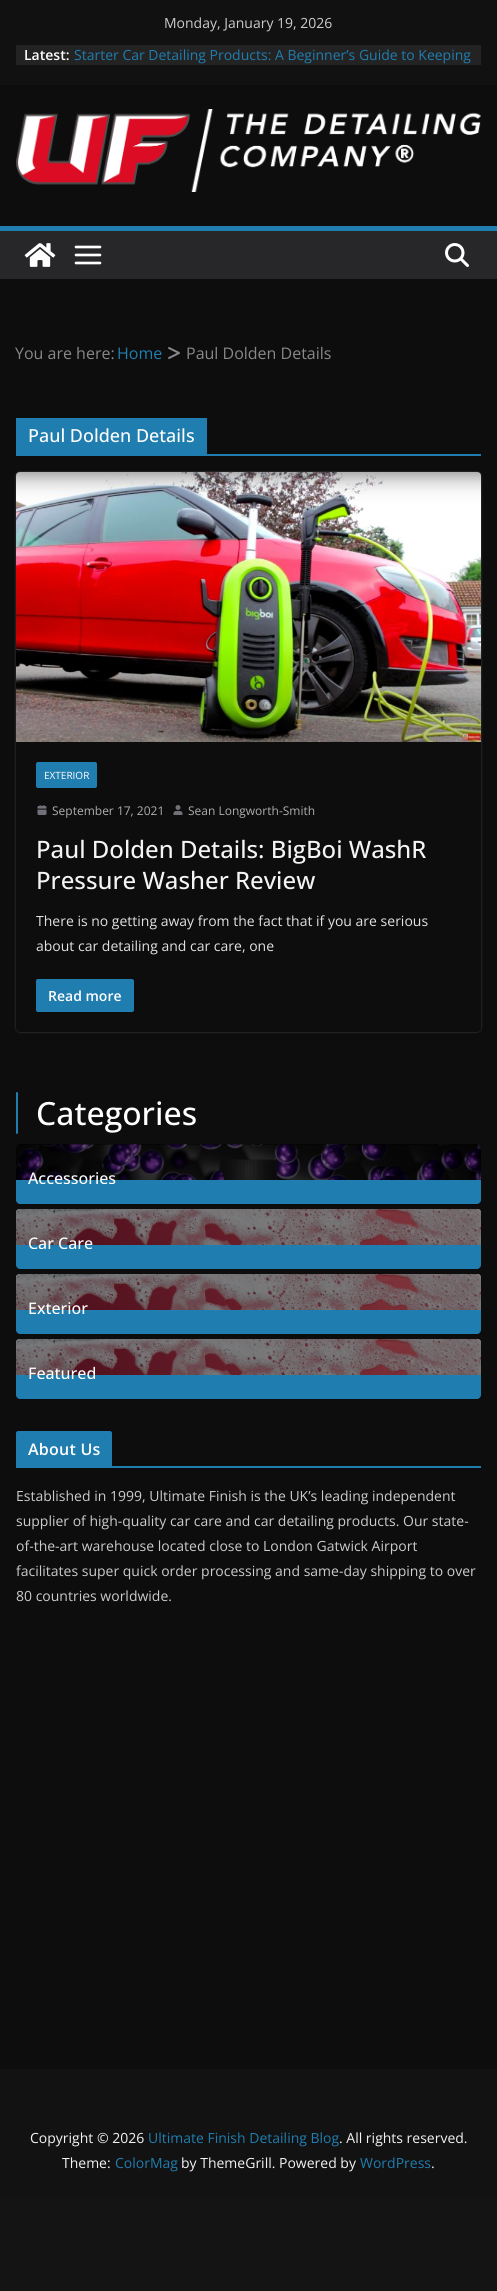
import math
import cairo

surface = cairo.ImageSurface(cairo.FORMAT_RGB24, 497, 2291)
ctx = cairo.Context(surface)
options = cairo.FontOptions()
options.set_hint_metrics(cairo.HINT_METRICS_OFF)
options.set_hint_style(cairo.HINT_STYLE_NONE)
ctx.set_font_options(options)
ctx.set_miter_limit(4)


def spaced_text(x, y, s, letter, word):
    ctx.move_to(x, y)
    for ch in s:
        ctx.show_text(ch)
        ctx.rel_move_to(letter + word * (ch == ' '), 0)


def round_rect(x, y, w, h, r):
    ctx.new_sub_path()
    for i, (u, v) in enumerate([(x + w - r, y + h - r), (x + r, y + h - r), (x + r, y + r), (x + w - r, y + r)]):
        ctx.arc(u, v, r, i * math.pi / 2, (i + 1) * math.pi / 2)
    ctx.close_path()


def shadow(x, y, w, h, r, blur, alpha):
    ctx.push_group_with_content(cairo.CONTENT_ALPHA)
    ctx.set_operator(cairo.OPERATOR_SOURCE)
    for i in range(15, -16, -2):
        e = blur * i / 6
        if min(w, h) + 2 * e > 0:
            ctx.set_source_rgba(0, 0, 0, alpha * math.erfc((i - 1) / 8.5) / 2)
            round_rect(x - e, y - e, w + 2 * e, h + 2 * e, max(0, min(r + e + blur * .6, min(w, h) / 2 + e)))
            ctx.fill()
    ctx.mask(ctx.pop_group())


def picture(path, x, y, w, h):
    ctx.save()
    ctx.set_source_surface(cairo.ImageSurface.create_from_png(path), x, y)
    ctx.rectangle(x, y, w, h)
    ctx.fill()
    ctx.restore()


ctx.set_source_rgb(0.082, 0.082, 0.082)
ctx.paint()
ctx.set_source_rgb(0.051, 0.051, 0.051)
ctx.rectangle(0, 279, 497, 1790)
ctx.fill()
ctx.set_source_rgb(0.067, 0.067, 0.067)
ctx.rectangle(0, 0, 497, 85)
ctx.fill()
ctx.select_font_face("Open Sans")
ctx.set_font_size(14)
ctx.set_source_rgb(0.8, 0.8, 0.8)
ctx.move_to(164, 28)
ctx.show_text("Monday, January 19, 2026")
ctx.set_source_rgb(0.137, 0.137, 0.137)
ctx.rectangle(16, 45, 465, 20)
ctx.fill()
ctx.select_font_face("Open Sans SemiBold")
ctx.set_source_rgb(1, 1, 1)
ctx.move_to(24, 60)
ctx.show_text("Latest:")
ctx.select_font_face("Open Sans")
ctx.set_source_rgb(0.125, 0.49, 0.686)
ctx.move_to(74, 60)
ctx.show_text("Starter Car Detailing Products: A Beginner’s Guide to Keeping")
ctx.set_source_rgb(0.051, 0.051, 0.051)
ctx.rectangle(0, 85, 497, 141)
ctx.fill()
picture("img1.png", 16, 109, 465, 83)
ctx.set_source_rgb(0.153, 0.153, 0.165)
ctx.rectangle(0, 231, 497, 48)
ctx.fill()
ctx.set_source_rgb(0.125, 0.49, 0.686)
ctx.rectangle(0, 226, 497, 5)
ctx.fill()
picture("img2.png", 24, 243, 32, 24)
picture("img3.png", 74, 245, 28, 20)
picture("img4.png", 445, 243, 24, 24)
ctx.set_font_size(16)
ctx.set_source_rgb(0.533, 0.533, 0.533)
ctx.move_to(15, 359)
ctx.show_text("You are here:")
ctx.set_source_rgb(0.125, 0.49, 0.686)
ctx.move_to(117, 359)
ctx.show_text("Home")
picture("img5.png", 168, 347, 12, 12)
ctx.set_source_rgb(0.533, 0.533, 0.533)
ctx.move_to(186, 359)
ctx.show_text("Paul Dolden Details")
ctx.set_source_rgb(0.125, 0.49, 0.686)
ctx.rectangle(16, 454, 465, 2)
ctx.fill()
ctx.rectangle(16, 418, 191, 36)
ctx.fill()
ctx.select_font_face("Open Sans Medium")
ctx.set_font_size(18)
ctx.set_source_rgb(1, 1, 1)
ctx.move_to(28, 442)
ctx.show_text("Paul Dolden Details")
ctx.save()
ctx.set_fill_rule(cairo.FILL_RULE_EVEN_ODD)
ctx.new_path()
ctx.move_to(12, 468)
ctx.line_to(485, 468)
ctx.line_to(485, 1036)
ctx.line_to(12, 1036)
ctx.close_path()
ctx.move_to(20, 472)
ctx.line_to(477, 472)
ctx.curve_to(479, 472, 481, 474, 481, 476)
ctx.line_to(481, 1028)
ctx.curve_to(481, 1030, 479, 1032, 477, 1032)
ctx.line_to(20, 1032)
ctx.curve_to(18, 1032, 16, 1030, 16, 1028)
ctx.line_to(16, 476)
ctx.curve_to(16, 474, 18, 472, 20, 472)
ctx.close_path()
ctx.clip()
ctx.set_source_rgb(1, 1, 1)
shadow(16, 472, 465, 560, 4, 1, 0.24)
ctx.restore()
picture("img6.png", 16, 472, 465, 270)
ctx.set_source_rgb(0.125, 0.49, 0.686)
round_rect(36, 762, 61, 26, 2)
ctx.fill()
ctx.select_font_face("Open Sans")
ctx.set_font_size(10)
ctx.set_source_rgb(1, 1, 1)
ctx.move_to(44, 779)
ctx.show_text("EXTERIOR")
picture("img7.png", 37, 805, 10, 10)
ctx.set_font_size(12)
ctx.set_source_rgb(0.682, 0.682, 0.682)
ctx.move_to(52, 815)
ctx.show_text("September 17, 2021")
picture("img8.png", 173, 805, 10, 10)
ctx.move_to(188, 815)
ctx.show_text("Sean Longworth-Smith")
ctx.select_font_face("Open Sans Medium")
ctx.set_font_size(24)
ctx.set_source_rgb(0.957, 0.957, 0.961)
ctx.move_to(36, 858)
ctx.show_text("Paul Dolden Details: BigBoi WashR")
ctx.move_to(36, 889)
ctx.show_text("Pressure Washer Review")
ctx.select_font_face("Open Sans")
ctx.set_font_size(14)
ctx.set_source_rgb(0.89, 0.886, 0.886)
ctx.move_to(36, 926)
ctx.show_text("There is no getting away from the fact that if you are serious")
ctx.move_to(36, 951)
ctx.show_text("about car detailing and car care, one")
ctx.set_source_rgb(0.125, 0.49, 0.686)
round_rect(36, 979, 98, 33, 2)
ctx.fill()
ctx.select_font_face("Open Sans SemiBold")
ctx.set_source_rgb(1, 1, 1)
ctx.move_to(48, 1001)
ctx.show_text("Read more")
ctx.set_source_rgb(0.125, 0.49, 0.686)
round_rect(16, 1092, 2, 42, 1)
ctx.fill()
ctx.select_font_face("Open Sans Medium")
ctx.set_font_size(32)
ctx.set_source_rgb(1, 1, 1)
ctx.move_to(36, 1125)
ctx.show_text("Categories")
picture("img9.png", 16, 1144, 465, 36)
ctx.set_source_rgba(0, 0, 0, 0.5)
ctx.new_path()
ctx.move_to(20, 1144)
ctx.line_to(477, 1144)
ctx.curve_to(479, 1144, 481, 1146, 481, 1148)
ctx.line_to(481, 1180)
ctx.line_to(16, 1180)
ctx.line_to(16, 1148)
ctx.curve_to(16, 1146, 18, 1144, 20, 1144)
ctx.close_path()
ctx.fill()
ctx.set_source_rgb(0.125, 0.49, 0.686)
ctx.new_path()
ctx.move_to(16, 1180)
ctx.line_to(481, 1180)
ctx.line_to(481, 1200)
ctx.curve_to(481, 1202, 479, 1204, 477, 1204)
ctx.line_to(20, 1204)
ctx.curve_to(18, 1204, 16, 1202, 16, 1200)
ctx.close_path()
ctx.fill()
ctx.save()
ctx.rectangle(16, 1144, 465, 40)
ctx.clip()
ctx.set_font_size(16)
ctx.set_source_rgb(1, 1, 1)
ctx.move_to(28, 1184)
ctx.show_text("Accessories")
ctx.restore()
picture("img10.png", 16, 1209, 465, 36)
ctx.set_source_rgba(0, 0, 0, 0.5)
ctx.new_path()
ctx.move_to(20, 1209)
ctx.line_to(477, 1209)
ctx.curve_to(479, 1209, 481, 1211, 481, 1213)
ctx.line_to(481, 1245)
ctx.line_to(16, 1245)
ctx.line_to(16, 1213)
ctx.curve_to(16, 1211, 18, 1209, 20, 1209)
ctx.close_path()
ctx.fill()
ctx.set_source_rgb(0.125, 0.49, 0.686)
ctx.new_path()
ctx.move_to(16, 1245)
ctx.line_to(481, 1245)
ctx.line_to(481, 1265)
ctx.curve_to(481, 1267, 479, 1269, 477, 1269)
ctx.line_to(20, 1269)
ctx.curve_to(18, 1269, 16, 1267, 16, 1265)
ctx.close_path()
ctx.fill()
ctx.save()
ctx.rectangle(16, 1209, 465, 40)
ctx.clip()
ctx.set_font_size(16)
ctx.set_source_rgb(1, 1, 1)
ctx.move_to(28, 1249)
ctx.show_text("Car Care")
ctx.restore()
picture("img10.png", 16, 1274, 465, 36)
ctx.set_source_rgba(0, 0, 0, 0.5)
ctx.new_path()
ctx.move_to(20, 1274)
ctx.line_to(477, 1274)
ctx.curve_to(479, 1274, 481, 1276, 481, 1278)
ctx.line_to(481, 1310)
ctx.line_to(16, 1310)
ctx.line_to(16, 1278)
ctx.curve_to(16, 1276, 18, 1274, 20, 1274)
ctx.close_path()
ctx.fill()
ctx.set_source_rgb(0.125, 0.49, 0.686)
ctx.new_path()
ctx.move_to(16, 1310)
ctx.line_to(481, 1310)
ctx.line_to(481, 1330)
ctx.curve_to(481, 1332, 479, 1334, 477, 1334)
ctx.line_to(20, 1334)
ctx.curve_to(18, 1334, 16, 1332, 16, 1330)
ctx.close_path()
ctx.fill()
ctx.save()
ctx.rectangle(16, 1274, 465, 40)
ctx.clip()
ctx.set_font_size(16)
ctx.set_source_rgb(1, 1, 1)
ctx.move_to(28, 1314)
ctx.show_text("Exterior")
ctx.restore()
picture("img10.png", 16, 1339, 465, 36)
ctx.set_source_rgba(0, 0, 0, 0.5)
ctx.new_path()
ctx.move_to(20, 1339)
ctx.line_to(477, 1339)
ctx.curve_to(479, 1339, 481, 1341, 481, 1343)
ctx.line_to(481, 1375)
ctx.line_to(16, 1375)
ctx.line_to(16, 1343)
ctx.curve_to(16, 1341, 18, 1339, 20, 1339)
ctx.close_path()
ctx.fill()
ctx.set_source_rgb(0.125, 0.49, 0.686)
ctx.new_path()
ctx.move_to(16, 1375)
ctx.line_to(481, 1375)
ctx.line_to(481, 1395)
ctx.curve_to(481, 1397, 479, 1399, 477, 1399)
ctx.line_to(20, 1399)
ctx.curve_to(18, 1399, 16, 1397, 16, 1395)
ctx.close_path()
ctx.fill()
ctx.save()
ctx.rectangle(16, 1339, 465, 40)
ctx.clip()
ctx.set_font_size(16)
ctx.set_source_rgb(1, 1, 1)
ctx.move_to(28, 1379)
ctx.show_text("Featured")
ctx.restore()
ctx.rectangle(16, 1466, 465, 2)
ctx.fill()
ctx.new_path()
ctx.move_to(18, 1431)
ctx.line_to(110, 1431)
ctx.curve_to(111, 1431, 112, 1432, 112, 1433)
ctx.line_to(112, 1466)
ctx.line_to(16, 1466)
ctx.line_to(16, 1433)
ctx.curve_to(16, 1432, 17, 1431, 18, 1431)
ctx.close_path()
ctx.fill()
ctx.select_font_face("Open Sans SemiBold")
ctx.set_font_size(16)
ctx.set_source_rgb(1, 1, 1)
spaced_text(28, 1455, "About Us", 0.25, 0)
ctx.select_font_face("Open Sans")
ctx.set_font_size(14)
ctx.set_source_rgb(0.8, 0.8, 0.8)
ctx.move_to(16, 1501)
ctx.show_text("Established in 1999, Ultimate Finish is the UK’s leading independent")
ctx.move_to(16, 1526)
ctx.show_text("supplier of high-quality car care and car detailing products. Our state-")
ctx.move_to(16, 1551)
ctx.show_text("of-the-art warehouse located close to London Gatwick Airport")
ctx.move_to(16, 1576)
ctx.show_text("facilitates super quick order processing and same-day shipping to over")
ctx.move_to(16, 1601)
ctx.show_text("80 countries worldwide.")
ctx.set_source_rgb(0.071, 0.071, 0.071)
ctx.rectangle(0, 2069, 497, 130)
ctx.fill()
ctx.set_source_rgb(0.957, 0.957, 0.961)
ctx.move_to(30, 2143)
ctx.show_text("Copyright © 2026")
ctx.set_source_rgb(0.125, 0.49, 0.686)
ctx.move_to(148, 2143)
ctx.show_text("Ultimate Finish Detailing Blog")
ctx.set_source_rgb(0.957, 0.957, 0.961)
ctx.move_to(339, 2143)
ctx.show_text(". All rights reserved.")
ctx.move_to(62, 2168)
ctx.show_text("Theme:")
ctx.set_source_rgb(0.125, 0.49, 0.686)
ctx.move_to(115, 2168)
ctx.show_text("ColorMag")
ctx.set_source_rgb(0.957, 0.957, 0.961)
ctx.move_to(181, 2168)
ctx.show_text("by ThemeGrill. Powered by")
ctx.set_source_rgb(0.125, 0.49, 0.686)
ctx.move_to(360, 2168)
ctx.show_text("WordPress")
ctx.set_source_rgb(0.957, 0.957, 0.961)
ctx.move_to(431, 2168)
ctx.show_text(".")
surface.write_to_png("page.png")
